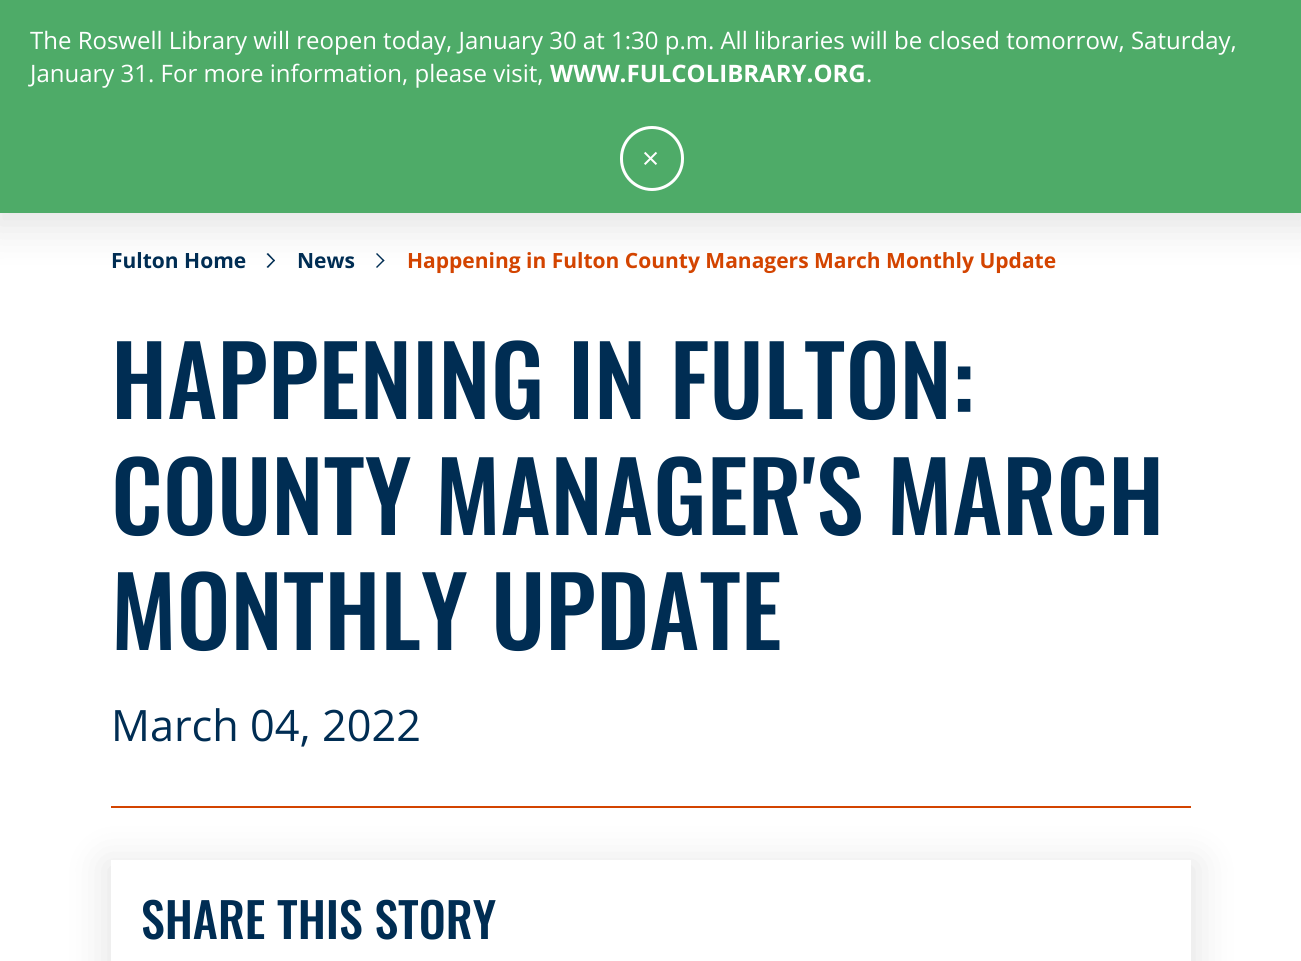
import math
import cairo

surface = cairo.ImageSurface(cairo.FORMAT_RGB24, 1301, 961)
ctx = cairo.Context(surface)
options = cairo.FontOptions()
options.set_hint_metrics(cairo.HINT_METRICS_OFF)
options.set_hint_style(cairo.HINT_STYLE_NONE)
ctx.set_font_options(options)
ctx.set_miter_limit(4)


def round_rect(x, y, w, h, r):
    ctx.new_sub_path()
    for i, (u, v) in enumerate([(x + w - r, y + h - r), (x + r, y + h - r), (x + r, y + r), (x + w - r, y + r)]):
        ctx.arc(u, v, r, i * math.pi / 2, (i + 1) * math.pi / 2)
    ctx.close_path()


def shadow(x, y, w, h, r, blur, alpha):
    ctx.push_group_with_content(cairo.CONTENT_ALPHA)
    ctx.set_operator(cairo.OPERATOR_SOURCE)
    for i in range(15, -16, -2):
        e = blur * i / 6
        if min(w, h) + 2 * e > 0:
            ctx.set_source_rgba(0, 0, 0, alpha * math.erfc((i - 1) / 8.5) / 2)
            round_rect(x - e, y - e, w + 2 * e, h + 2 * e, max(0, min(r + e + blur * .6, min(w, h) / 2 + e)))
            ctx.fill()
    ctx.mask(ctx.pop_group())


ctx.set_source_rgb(1, 1, 1)
ctx.paint()
ctx.set_source_rgb(0, 0.176, 0.325)
ctx.new_path()
ctx.move_to(268, 253)
ctx.line_to(275, 260.5)
ctx.line_to(274, 261.5)
ctx.line_to(266.5, 254)
ctx.close_path()
ctx.fill()
ctx.new_path()
ctx.move_to(274, 259.5)
ctx.line_to(275, 260.5)
ctx.line_to(268, 268)
ctx.line_to(266.5, 267)
ctx.close_path()
ctx.fill()
ctx.new_path()
ctx.move_to(377, 253)
ctx.line_to(384.5, 260.5)
ctx.line_to(383.5, 261.5)
ctx.line_to(376, 254)
ctx.close_path()
ctx.fill()
ctx.new_path()
ctx.move_to(383.5, 259.5)
ctx.line_to(384.5, 260.5)
ctx.line_to(377, 268)
ctx.line_to(376, 267)
ctx.close_path()
ctx.fill()
ctx.set_source_rgb(0, 0, 0)
shadow(-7, -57, 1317, 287, 0, 19, 0.1)
ctx.set_source_rgb(0.306, 0.671, 0.408)
ctx.rectangle(0, 0, 1301, 213)
ctx.fill()
ctx.select_font_face("Open Sans")
ctx.set_font_size(24)
ctx.set_source_rgb(1, 1, 1)
ctx.move_to(30, 49)
ctx.show_text("The Roswell Library will reopen today, January 30 at 1:30 p.m. All libraries will be closed tomorrow, Saturday,")
ctx.move_to(30, 82)
ctx.show_text("January 31. For more information, please visit,")
ctx.select_font_face("Open Sans", cairo.FONT_SLANT_NORMAL, cairo.FONT_WEIGHT_BOLD)
ctx.move_to(550, 82)
ctx.show_text("WWW.FULCOLIBRARY.ORG")
ctx.select_font_face("Open Sans")
ctx.move_to(866, 82)
ctx.show_text(".")
round_rect(621.5, 127.5, 61, 62, 30.5)
ctx.set_line_width(3)
ctx.stroke()
ctx.set_font_size(30)
ctx.move_to(642, 169)
ctx.show_text("×")
ctx.select_font_face("Open Sans", cairo.FONT_SLANT_NORMAL, cairo.FONT_WEIGHT_BOLD)
ctx.set_font_size(21)
ctx.set_source_rgb(0, 0.176, 0.325)
ctx.move_to(111, 268)
ctx.show_text("Fulton Home")
ctx.move_to(297, 268)
ctx.show_text("News")
ctx.set_source_rgb(0.827, 0.267, 0)
ctx.move_to(407, 268)
ctx.show_text("Happening in Fulton County Managers March Monthly Update")
ctx.rectangle(111, 806, 1080, 2)
ctx.fill()
ctx.select_font_face("Oswald Medium")
ctx.set_font_size(96)
ctx.set_source_rgb(0, 0.176, 0.325)
ctx.move_to(111, 419)
ctx.show_text("HAPPENING IN FULTON:")
ctx.move_to(111, 535)
ctx.show_text("COUNTY MANAGER'S MARCH")
ctx.move_to(111, 650)
ctx.show_text("MONTHLY UPDATE")
ctx.select_font_face("Open Sans")
ctx.set_font_size(43.25)
ctx.move_to(111, 741)
ctx.show_text("March 04, 2022")
ctx.save()
ctx.set_fill_rule(cairo.FILL_RULE_EVEN_ODD)
ctx.new_path()
ctx.move_to(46, 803)
ctx.line_to(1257, 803)
ctx.line_to(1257, 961)
ctx.line_to(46, 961)
ctx.close_path()
ctx.move_to(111, 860)
ctx.line_to(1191, 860)
ctx.line_to(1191, 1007)
ctx.line_to(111, 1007)
ctx.close_path()
ctx.clip()
ctx.set_source_rgb(0, 0, 0)
shadow(104, 861, 1095, 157, 0, 19, 0.1)
ctx.restore()
ctx.select_font_face("Oswald Medium")
ctx.set_font_size(48)
ctx.move_to(141, 939)
ctx.show_text("SHARE THIS STORY")
surface.write_to_png("page.png")
